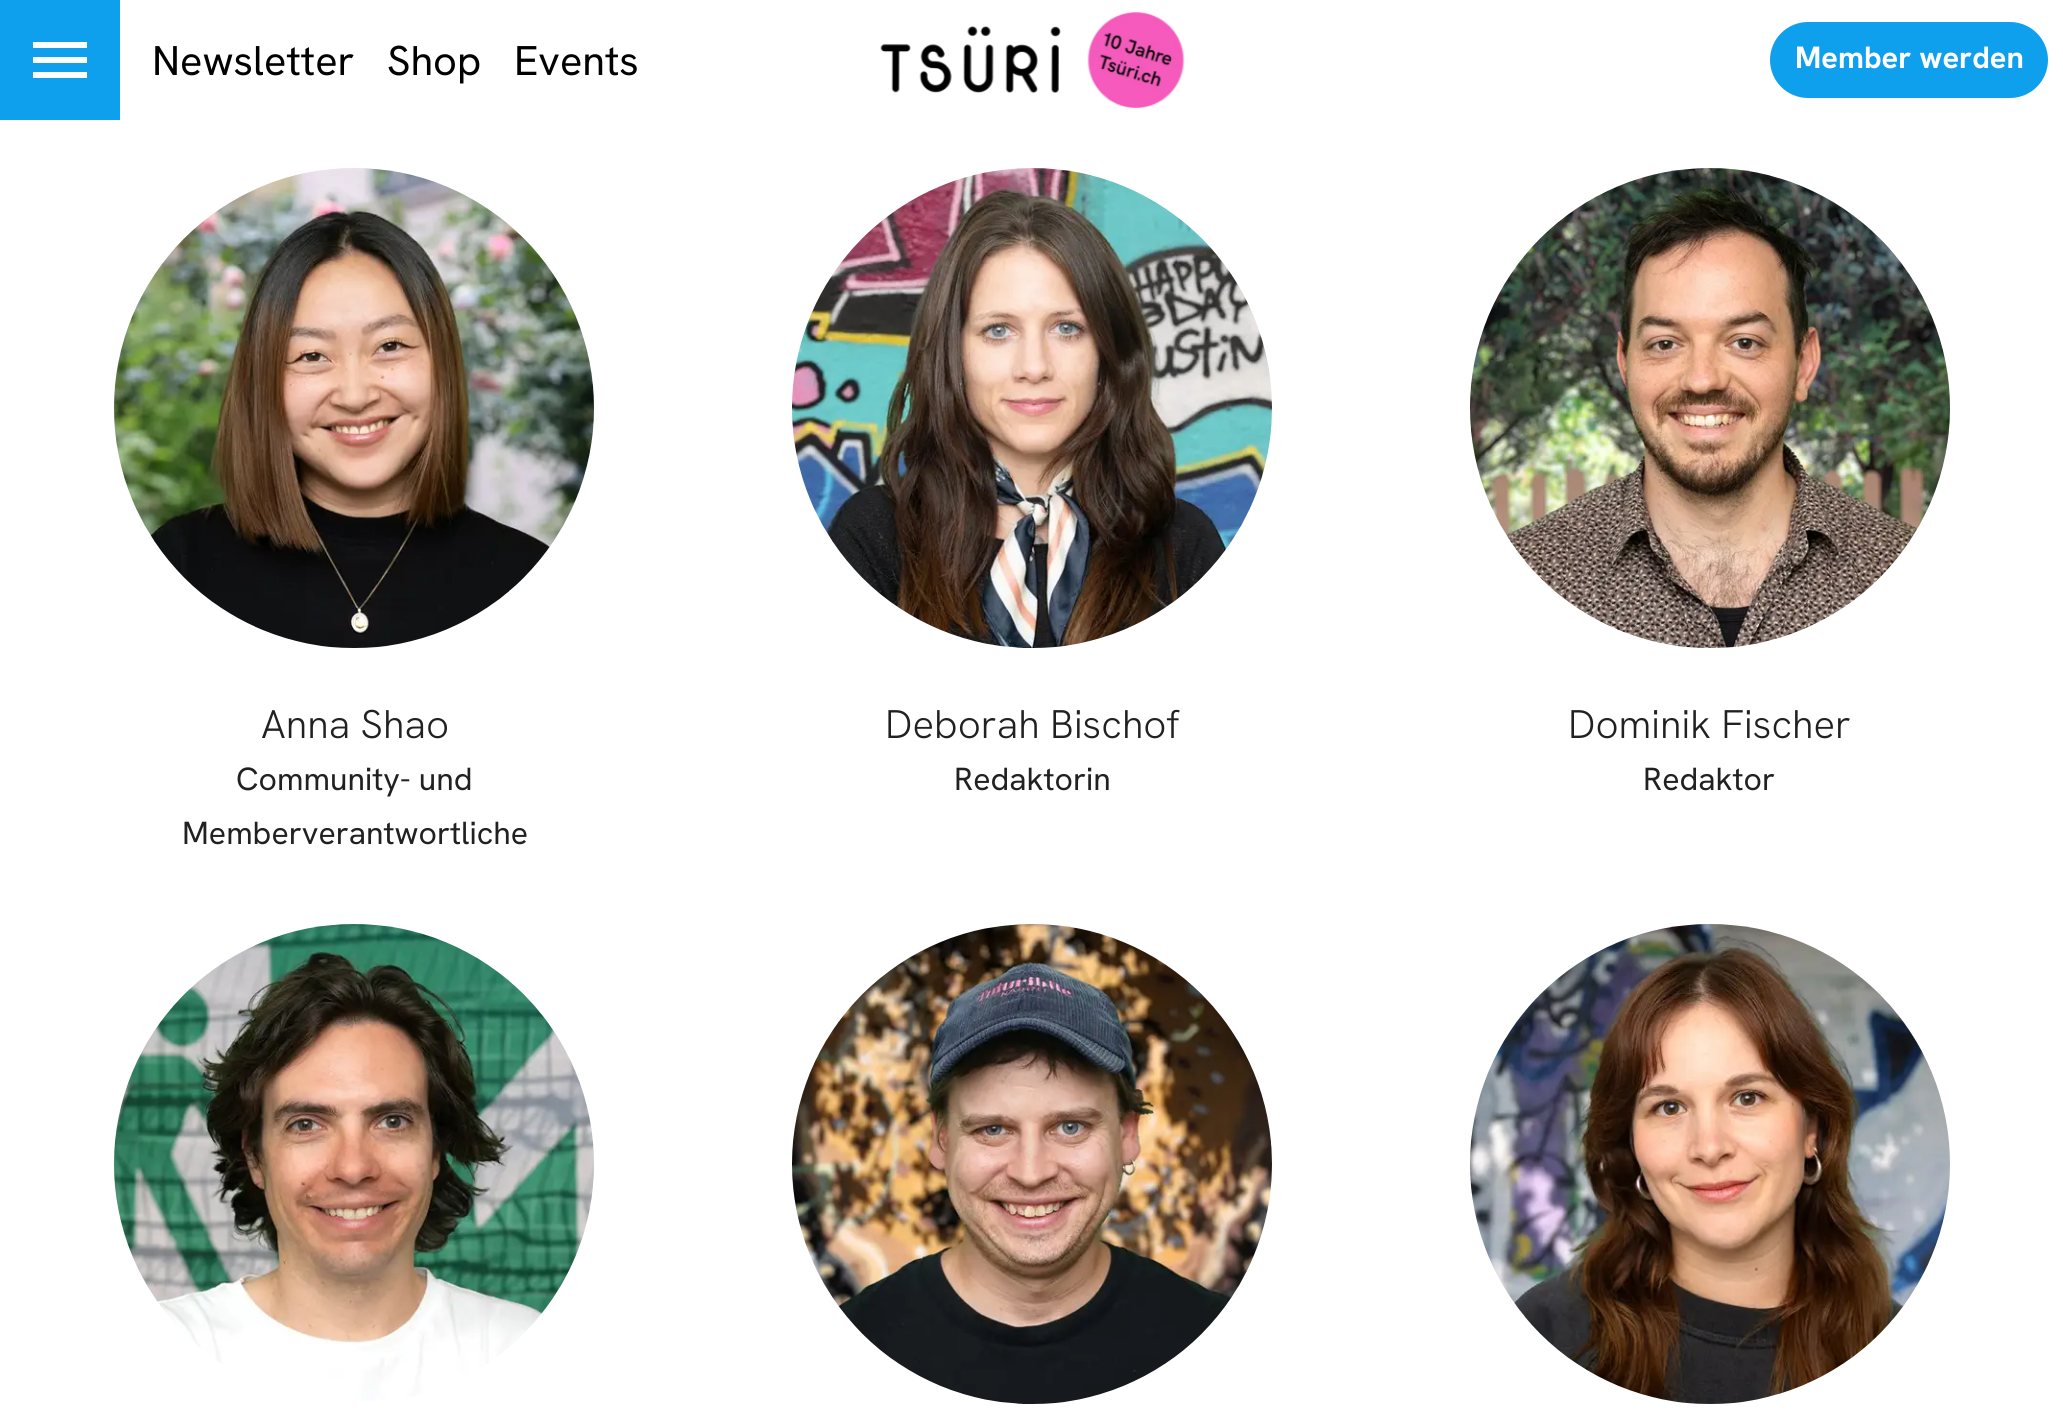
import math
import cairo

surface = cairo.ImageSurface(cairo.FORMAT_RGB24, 2063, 1415)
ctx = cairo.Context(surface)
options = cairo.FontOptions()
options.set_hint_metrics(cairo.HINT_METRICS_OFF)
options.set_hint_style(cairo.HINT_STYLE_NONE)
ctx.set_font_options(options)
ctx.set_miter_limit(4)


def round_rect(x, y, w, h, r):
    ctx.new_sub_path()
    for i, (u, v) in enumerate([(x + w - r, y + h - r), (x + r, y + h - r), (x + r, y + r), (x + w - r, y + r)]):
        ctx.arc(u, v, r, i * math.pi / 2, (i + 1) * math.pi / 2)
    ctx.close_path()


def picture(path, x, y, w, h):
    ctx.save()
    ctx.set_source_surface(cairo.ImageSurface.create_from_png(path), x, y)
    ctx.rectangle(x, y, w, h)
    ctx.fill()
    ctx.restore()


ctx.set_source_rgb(1, 1, 1)
ctx.paint()
ctx.set_source_rgb(0.055, 0.624, 0.929)
ctx.rectangle(0, 0, 120, 120)
ctx.fill()
ctx.set_source_rgb(1, 1, 1)
ctx.new_path()
ctx.move_to(33, 78)
ctx.line_to(87, 78)
ctx.line_to(87, 72)
ctx.line_to(33, 72)
ctx.close_path()
ctx.move_to(33, 63)
ctx.line_to(87, 63)
ctx.line_to(87, 57)
ctx.line_to(33, 57)
ctx.close_path()
ctx.move_to(33, 42)
ctx.line_to(33, 48)
ctx.line_to(87, 48)
ctx.line_to(87, 42)
ctx.close_path()
ctx.fill()
ctx.select_font_face("Hanken Grotesk")
ctx.set_font_size(41.5)
ctx.set_source_rgb(0, 0, 0)
ctx.move_to(152, 75)
ctx.show_text("Newsletter")
ctx.move_to(387, 75)
ctx.show_text("Shop")
ctx.move_to(514, 75)
ctx.show_text("Events")
picture("img1.png", 880, 12, 305, 96)
ctx.set_source_rgb(0.055, 0.624, 0.929)
round_rect(1770, 22, 278, 76, 38)
ctx.fill()
ctx.select_font_face("Hanken Grotesk", cairo.FONT_SLANT_NORMAL, cairo.FONT_WEIGHT_BOLD)
ctx.set_font_size(30.75)
ctx.set_source_rgb(1, 1, 1)
ctx.move_to(1795, 68)
ctx.show_text("Member werden")
picture("img2.png", 114, 168, 480, 480)
ctx.select_font_face("Hanken Grotesk Light")
ctx.set_font_size(40)
ctx.set_source_rgb(0.129, 0.129, 0.129)
ctx.move_to(261, 738)
ctx.show_text("Anna Shao")
ctx.select_font_face("Hanken Grotesk")
ctx.set_font_size(32)
ctx.move_to(236, 790)
ctx.show_text("Community- und")
ctx.move_to(182, 844)
ctx.show_text("Memberverantwortliche")
picture("img3.png", 792, 168, 480, 480)
ctx.select_font_face("Hanken Grotesk Light")
ctx.set_font_size(40)
ctx.move_to(885, 738)
ctx.show_text("Deborah Bischof")
ctx.select_font_face("Hanken Grotesk")
ctx.set_font_size(32)
ctx.move_to(954, 790)
ctx.show_text("Redaktorin")
picture("img4.png", 1470, 168, 480, 480)
ctx.select_font_face("Hanken Grotesk Light")
ctx.set_font_size(40)
ctx.move_to(1568, 738)
ctx.show_text("Dominik Fischer")
ctx.select_font_face("Hanken Grotesk")
ctx.set_font_size(32)
ctx.move_to(1643, 790)
ctx.show_text("Redaktor")
picture("img5.png", 114, 924, 480, 477)
picture("img6.png", 792, 924, 480, 480)
picture("img7.png", 1470, 924, 480, 480)
surface.write_to_png("page.png")
